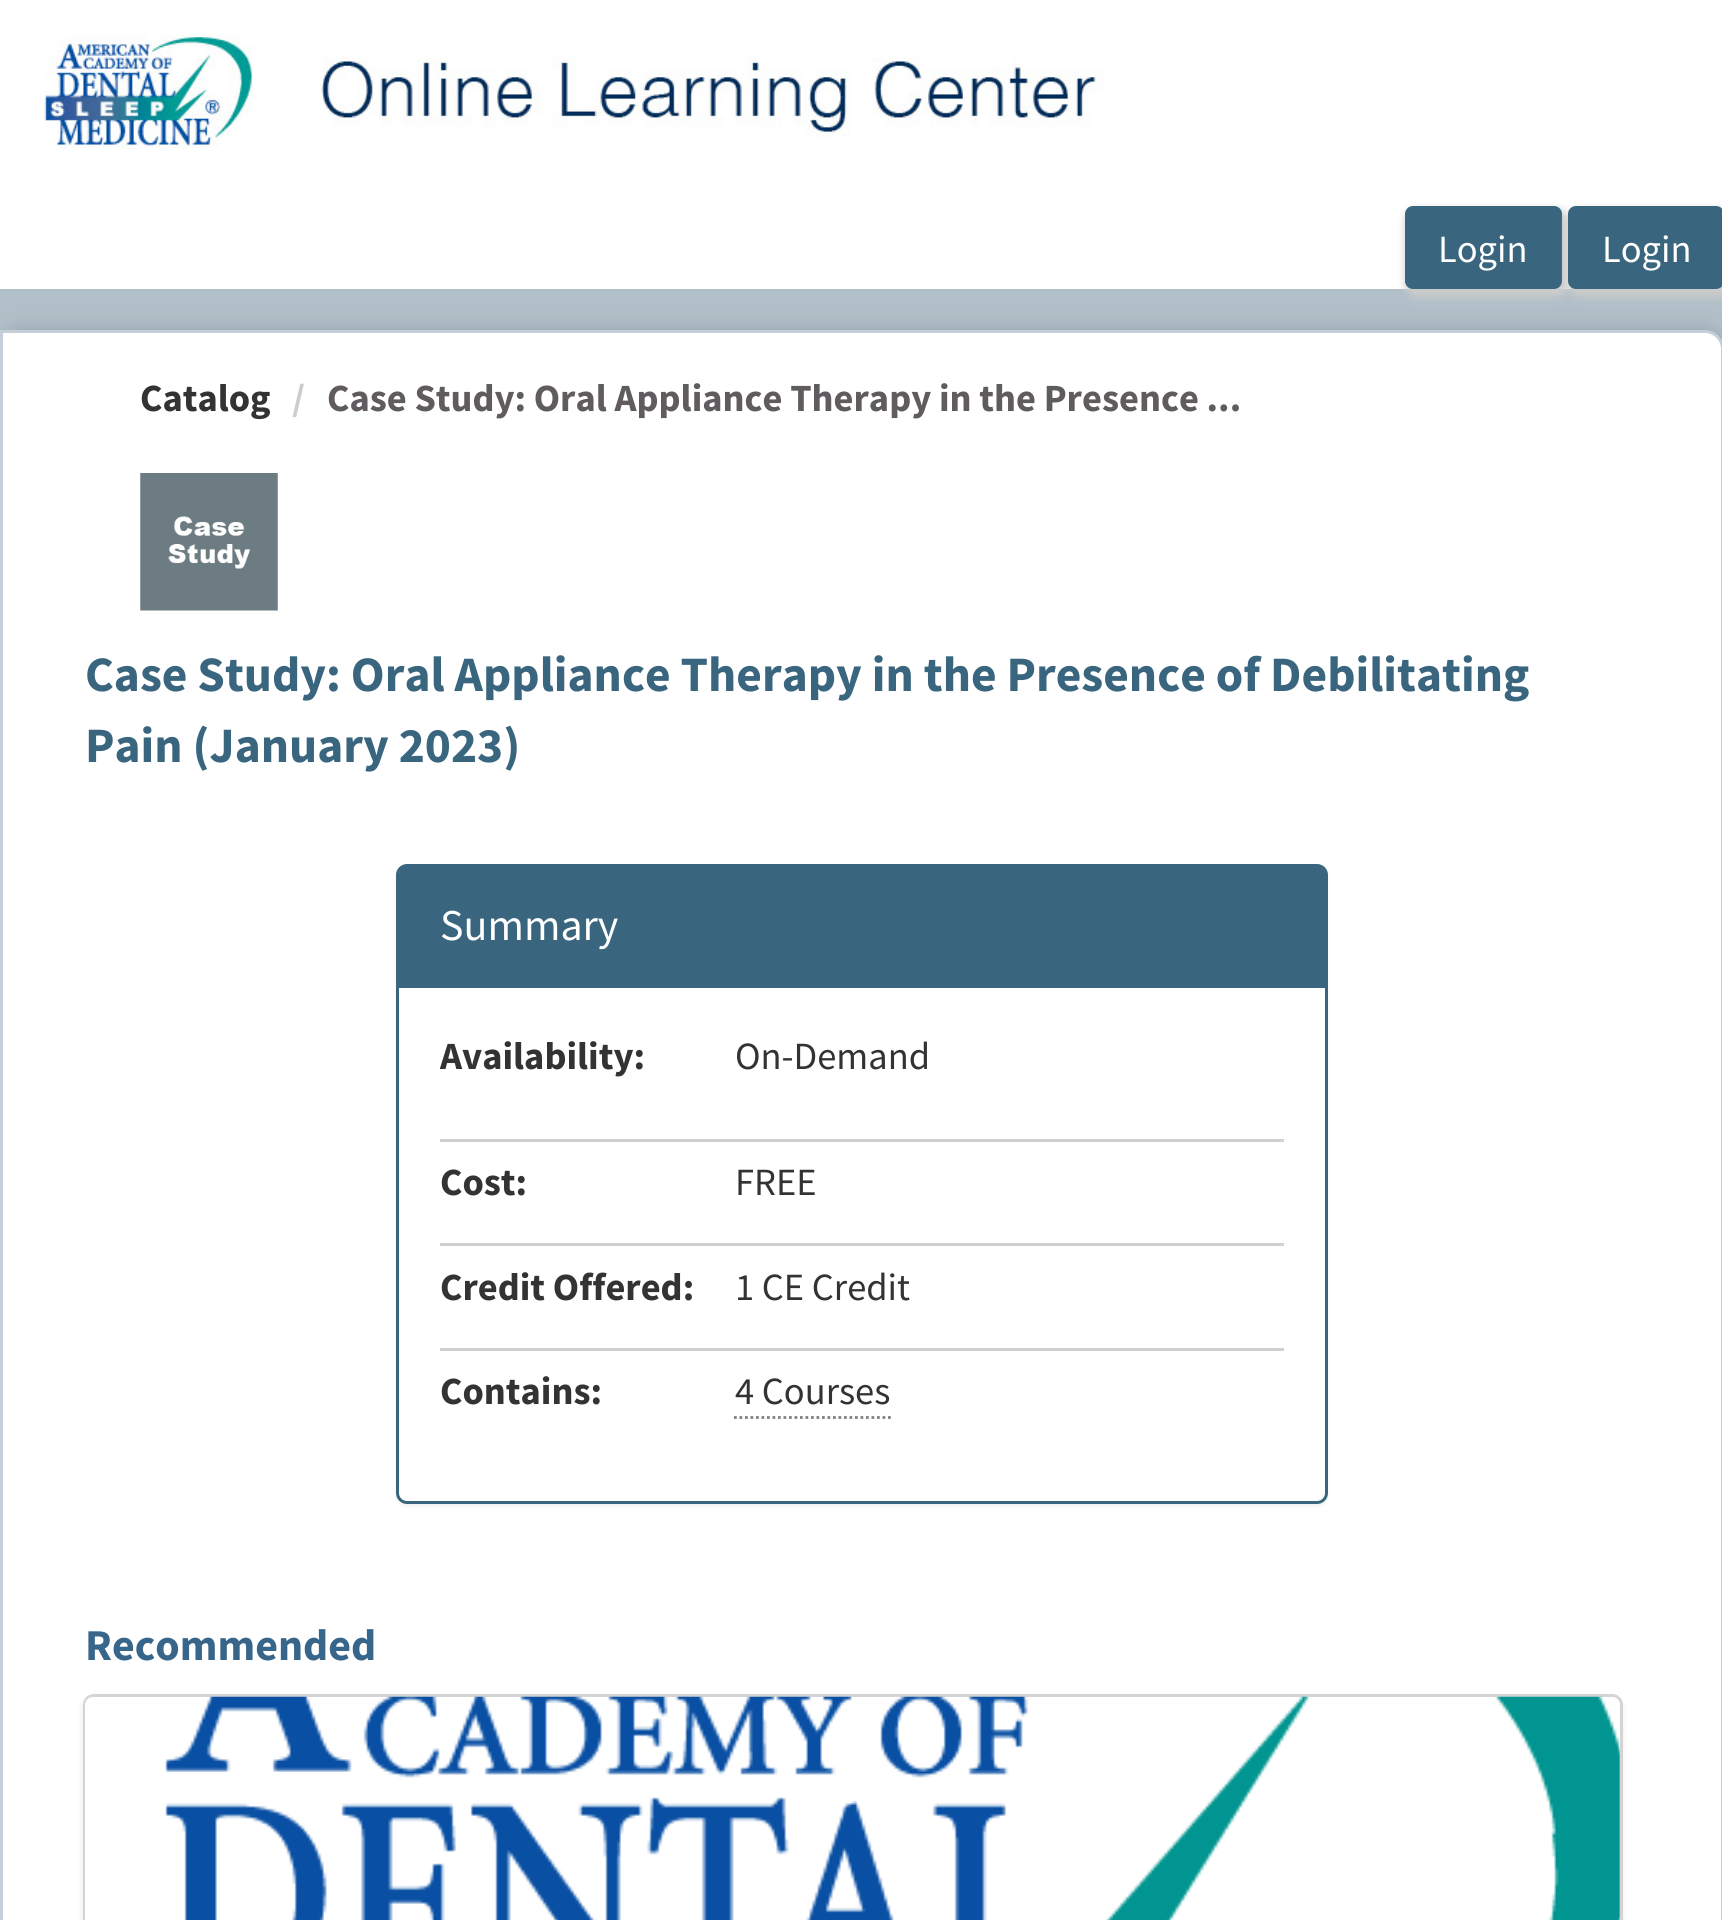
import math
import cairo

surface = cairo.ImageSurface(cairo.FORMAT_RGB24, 1722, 1920)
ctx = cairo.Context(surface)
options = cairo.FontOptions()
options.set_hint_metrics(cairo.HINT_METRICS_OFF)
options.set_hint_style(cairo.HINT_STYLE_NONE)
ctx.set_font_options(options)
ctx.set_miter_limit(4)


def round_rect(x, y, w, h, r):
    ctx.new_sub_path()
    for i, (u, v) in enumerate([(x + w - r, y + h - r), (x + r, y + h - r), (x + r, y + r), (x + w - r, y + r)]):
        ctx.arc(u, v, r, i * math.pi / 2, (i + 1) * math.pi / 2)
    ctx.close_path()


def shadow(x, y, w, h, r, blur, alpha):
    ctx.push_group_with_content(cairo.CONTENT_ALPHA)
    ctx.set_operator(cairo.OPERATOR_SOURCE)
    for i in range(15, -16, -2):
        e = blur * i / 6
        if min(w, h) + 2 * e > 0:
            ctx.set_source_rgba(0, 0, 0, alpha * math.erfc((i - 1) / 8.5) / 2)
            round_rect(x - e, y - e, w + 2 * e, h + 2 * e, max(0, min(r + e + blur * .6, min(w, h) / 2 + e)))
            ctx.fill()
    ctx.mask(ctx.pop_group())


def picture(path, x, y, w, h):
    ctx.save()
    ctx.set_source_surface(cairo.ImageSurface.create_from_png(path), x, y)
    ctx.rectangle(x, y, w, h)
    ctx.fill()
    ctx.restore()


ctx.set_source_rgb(1, 1, 1)
ctx.paint()
picture("img1.png", 0, 289, 1722, 52)
picture("img2.png", 44, 34, 1060, 115)
ctx.set_source_rgb(0.8, 0.8, 0.8)
shadow(1405, 209, 163, 88, 11, 4, 1)
ctx.set_source_rgb(0.224, 0.396, 0.494)
round_rect(1405, 206, 157, 83, 8)
ctx.fill()
ctx.select_font_face("Source Sans Pro")
ctx.set_font_size(38.5)
ctx.set_source_rgb(1, 1, 1)
ctx.move_to(1438, 262)
ctx.show_text("Login")
ctx.set_source_rgb(0.8, 0.8, 0.8)
shadow(1568, 209, 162, 88, 11, 4, 1)
ctx.set_source_rgb(0.224, 0.396, 0.494)
round_rect(1568, 206, 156, 83, 8)
ctx.fill()
ctx.set_source_rgb(1, 1, 1)
ctx.move_to(1602, 262)
ctx.show_text("Login")
ctx.set_source_rgb(0, 0, 0)
shadow(0, 333, 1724, 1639, 19, 11, 0.2)
ctx.set_source_rgb(1, 1, 1)
ctx.new_path()
ctx.move_to(1.5, 331.5)
ctx.line_to(1705, 331.5)
ctx.curve_to(1714.5, 331.5, 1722.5, 339.5, 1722.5, 349)
ctx.line_to(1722.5, 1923)
ctx.curve_to(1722.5, 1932.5, 1714.5, 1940.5, 1705, 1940.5)
ctx.line_to(1.5, 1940.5)
ctx.close_path()
ctx.fill_preserve()
ctx.set_source_rgb(0.773, 0.812, 0.851)
ctx.set_line_width(3)
ctx.stroke()
ctx.select_font_face("Source Sans Pro", cairo.FONT_SLANT_NORMAL, cairo.FONT_WEIGHT_BOLD)
ctx.set_source_rgb(0.2, 0.2, 0.2)
ctx.move_to(140, 411)
ctx.show_text("Catalog")
ctx.set_source_rgb(0.8, 0.8, 0.8)
ctx.move_to(292, 411)
ctx.show_text("/")
ctx.set_source_rgb(0.373, 0.357, 0.373)
ctx.move_to(327, 411)
ctx.show_text("Case Study: Oral Appliance Therapy in the Presence ...")
picture("img3.png", 140, 473, 138, 138)
ctx.set_font_size(49.5)
ctx.set_source_rgb(0.224, 0.4, 0.494)
ctx.move_to(85, 691)
ctx.show_text("Case Study: Oral Appliance Therapy in the Presence of Debilitating")
ctx.move_to(85, 762)
ctx.show_text("Pain (January 2023)")
ctx.set_source_rgb(0, 0, 0)
shadow(396, 866, 932, 641, 11, 1.5, 0.05)
ctx.set_source_rgb(1, 1, 1)
round_rect(397.5, 865.5, 929, 637, 9.5)
ctx.fill_preserve()
ctx.set_source_rgb(0.224, 0.4, 0.494)
ctx.stroke()
ctx.new_path()
ctx.move_to(407, 866)
ctx.line_to(1318, 866)
ctx.curve_to(1322.5, 866, 1326, 869.5, 1326, 874)
ctx.line_to(1326, 987)
ctx.line_to(399, 987)
ctx.line_to(399, 874)
ctx.curve_to(399, 869.5, 402.5, 866, 407, 866)
ctx.close_path()
ctx.fill()
ctx.rectangle(399, 987, 927, 1)
ctx.fill()
ctx.select_font_face("Source Sans Pro")
ctx.set_font_size(44)
ctx.set_source_rgb(1, 1, 1)
ctx.move_to(440, 940)
ctx.show_text("Summary")
ctx.select_font_face("Source Sans Pro", cairo.FONT_SLANT_NORMAL, cairo.FONT_WEIGHT_BOLD)
ctx.set_font_size(38.5)
ctx.set_source_rgb(0.2, 0.2, 0.2)
ctx.move_to(440, 1069)
ctx.show_text("Availability:")
ctx.select_font_face("Source Sans Pro")
ctx.move_to(735, 1069)
ctx.show_text("On-Demand")
ctx.set_source_rgb(0.816, 0.816, 0.816)
ctx.rectangle(440, 1139, 844, 3)
ctx.fill()
ctx.select_font_face("Source Sans Pro", cairo.FONT_SLANT_NORMAL, cairo.FONT_WEIGHT_BOLD)
ctx.set_source_rgb(0.2, 0.2, 0.2)
ctx.move_to(440, 1195)
ctx.show_text("Cost:")
ctx.select_font_face("Source Sans Pro")
ctx.move_to(735, 1195)
ctx.show_text("FREE")
ctx.set_source_rgb(0.816, 0.816, 0.816)
ctx.rectangle(440, 1243, 844, 3)
ctx.fill()
ctx.select_font_face("Source Sans Pro", cairo.FONT_SLANT_NORMAL, cairo.FONT_WEIGHT_BOLD)
ctx.set_source_rgb(0.2, 0.2, 0.2)
ctx.move_to(440, 1300)
ctx.show_text("Credit Offered:")
ctx.select_font_face("Source Sans Pro")
ctx.move_to(735, 1300)
ctx.show_text("1 CE Credit")
ctx.set_source_rgb(0.816, 0.816, 0.816)
ctx.rectangle(440, 1348, 844, 3)
ctx.fill()
ctx.select_font_face("Source Sans Pro", cairo.FONT_SLANT_NORMAL, cairo.FONT_WEIGHT_BOLD)
ctx.set_source_rgb(0.2, 0.2, 0.2)
ctx.move_to(440, 1404)
ctx.show_text("Contains:")
ctx.select_font_face("Source Sans Pro")
ctx.move_to(735, 1404)
ctx.show_text("4 Courses")
ctx.new_path()
ctx.move_to(734, 1417.5)
ctx.line_to(891, 1417.5)
ctx.set_source_rgb(0.502, 0.502, 0.502)
ctx.set_line_width(2.8)
ctx.set_dash([2.75, 2.75])
ctx.stroke()
ctx.select_font_face("Source Sans Pro", cairo.FONT_SLANT_NORMAL, cairo.FONT_WEIGHT_BOLD)
ctx.set_font_size(44)
ctx.set_source_rgb(0.22, 0.4, 0.541)
ctx.move_to(85, 1660)
ctx.show_text("Recommended")
round_rect(84.5, 1695.5, 1537, 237, 9.5)
ctx.set_source_rgb(0.831, 0.831, 0.835)
ctx.set_line_width(3)
ctx.set_dash([])
ctx.stroke()
ctx.set_source_rgb(0.831, 0.831, 0.835)
shadow(85, 1700, 1535, 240, 8, 4, 1)
ctx.set_source_rgb(1, 1, 1)
round_rect(85, 1697, 1535, 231, 8)
ctx.fill()
picture("img4.png", 165, 1696, 1455, 224)
surface.write_to_png("page.png")
